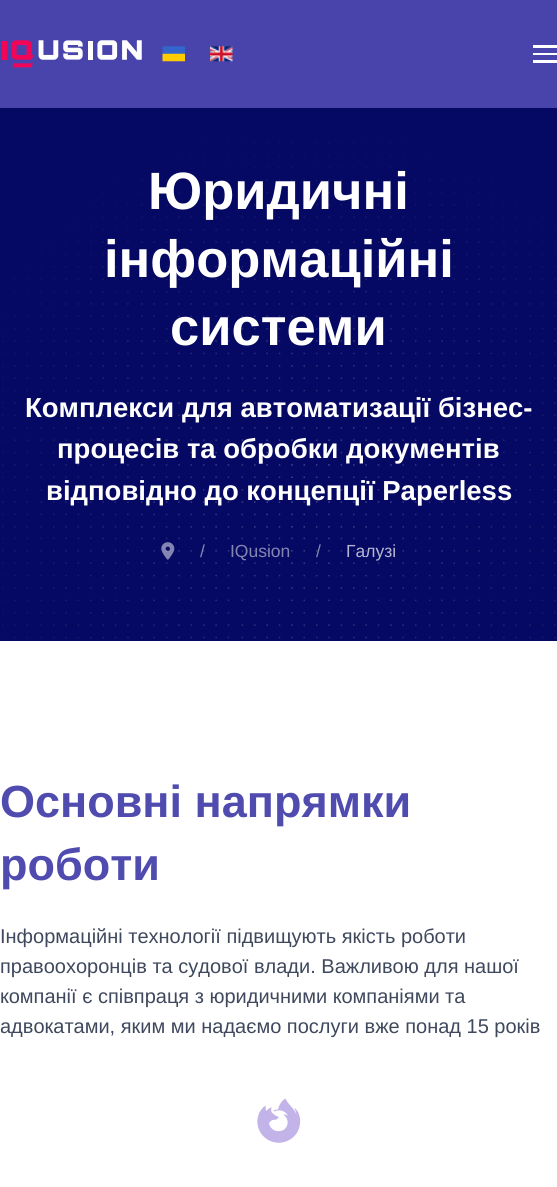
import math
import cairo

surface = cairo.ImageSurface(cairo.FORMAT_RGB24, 557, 1187)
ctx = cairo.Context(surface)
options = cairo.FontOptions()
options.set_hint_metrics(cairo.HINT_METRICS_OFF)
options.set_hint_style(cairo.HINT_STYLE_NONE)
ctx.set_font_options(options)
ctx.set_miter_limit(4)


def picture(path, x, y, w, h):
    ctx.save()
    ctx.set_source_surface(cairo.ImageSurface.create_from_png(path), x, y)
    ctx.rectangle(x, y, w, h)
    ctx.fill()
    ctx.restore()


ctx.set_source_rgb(1, 1, 1)
ctx.paint()
ctx.set_source_rgb(0.286, 0.263, 0.675)
ctx.rectangle(0, 0, 557, 108)
ctx.fill()
picture("img1.png", 2, 40, 140, 28)
picture("img2.png", 162, 46, 23, 16)
picture("img3.png", 210, 46, 23, 16)
ctx.set_source_rgb(1, 1, 1)
ctx.rectangle(533, 45, 24, 3)
ctx.fill()
ctx.rectangle(533, 53, 24, 2)
ctx.fill()
ctx.rectangle(533, 60, 24, 3)
ctx.fill()
ctx.set_source_rgb(0.024, 0.039, 0.392)
ctx.rectangle(0, 108, 557, 533)
ctx.fill()
picture("img4.png", 2, 142, 554, 497)
ctx.select_font_face("Liberation Sans", cairo.FONT_SLANT_NORMAL, cairo.FONT_WEIGHT_BOLD)
ctx.set_font_size(52.5)
ctx.set_source_rgb(1, 1, 1)
ctx.move_to(148, 209)
ctx.show_text("Юридичні")
ctx.move_to(104, 277)
ctx.show_text("інформаційні")
ctx.move_to(170, 345)
ctx.show_text("системи")
ctx.set_font_size(27.5)
ctx.move_to(25, 417)
ctx.show_text("Комплекси для автоматизації бізнес-")
ctx.move_to(57, 458)
ctx.show_text("процесів та обробки документів")
ctx.move_to(46, 500)
ctx.show_text("відповідно до концепції Paperless")
picture("img5.png", 161, 542, 14, 18)
ctx.select_font_face("Liberation Sans")
ctx.set_font_size(17.5)
ctx.set_source_rgb(0.518, 0.525, 0.698)
ctx.move_to(200, 557)
ctx.show_text("/")
ctx.move_to(230, 557)
ctx.show_text("IQusion")
ctx.move_to(316, 557)
ctx.show_text("/")
ctx.set_source_rgb(0.706, 0.714, 0.82)
ctx.move_to(346, 557)
ctx.show_text("Галузі")
ctx.select_font_face("Liberation Sans", cairo.FONT_SLANT_NORMAL, cairo.FONT_WEIGHT_BOLD)
ctx.set_font_size(45)
ctx.set_source_rgb(0.314, 0.294, 0.686)
ctx.move_to(0, 817)
ctx.show_text("Основні напрямки")
ctx.move_to(0, 880)
ctx.show_text("роботи")
ctx.select_font_face("Liberation Sans")
ctx.set_font_size(20)
ctx.set_source_rgb(0.247, 0.282, 0.365)
ctx.move_to(0, 943)
ctx.show_text("Інформаційні технології підвищують якість роботи")
ctx.move_to(0, 973)
ctx.show_text("правоохоронців та судової влади. Важливою для нашої")
ctx.move_to(0, 1003)
ctx.show_text("компанії є співпраця з юридичними компаніями та")
ctx.move_to(0, 1033)
ctx.show_text("адвокатами, яким ми надаємо послуги вже понад 15 років")
picture("img6.png", 257, 1098, 44, 45)
surface.write_to_png("page.png")
